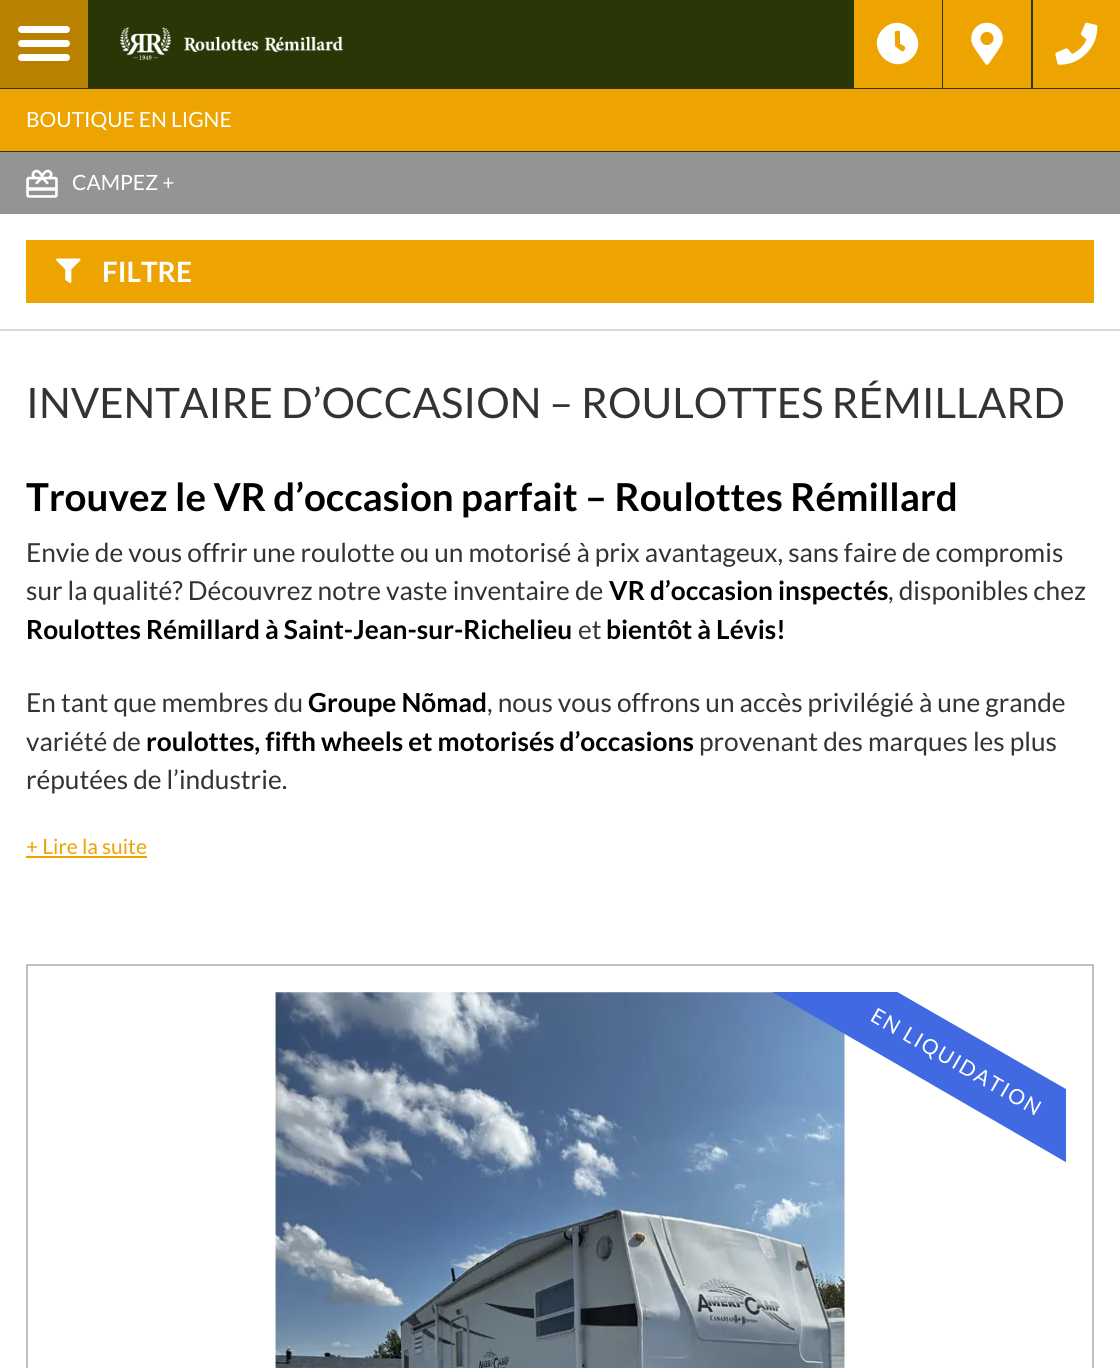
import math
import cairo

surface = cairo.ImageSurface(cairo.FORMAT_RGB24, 1120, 1368)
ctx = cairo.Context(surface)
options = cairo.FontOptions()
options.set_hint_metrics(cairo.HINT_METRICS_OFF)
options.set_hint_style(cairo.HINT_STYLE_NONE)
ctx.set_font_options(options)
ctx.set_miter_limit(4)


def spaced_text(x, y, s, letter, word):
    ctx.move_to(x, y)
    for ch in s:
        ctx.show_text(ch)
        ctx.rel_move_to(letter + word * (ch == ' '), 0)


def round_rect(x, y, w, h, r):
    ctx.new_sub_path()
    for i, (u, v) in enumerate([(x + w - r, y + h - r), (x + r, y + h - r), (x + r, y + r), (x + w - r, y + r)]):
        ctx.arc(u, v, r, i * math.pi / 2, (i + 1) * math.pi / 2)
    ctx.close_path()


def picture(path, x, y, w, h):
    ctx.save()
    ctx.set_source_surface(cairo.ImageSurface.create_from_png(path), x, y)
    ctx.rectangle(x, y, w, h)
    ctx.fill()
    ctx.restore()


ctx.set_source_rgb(0.851, 0.851, 0.851)
ctx.paint()
ctx.set_source_rgb(0.161, 0.216, 0.027)
ctx.rectangle(0, 0, 1120, 152)
ctx.fill()
ctx.set_source_rgb(0.729, 0.502, 0)
ctx.rectangle(0, 0, 88, 88)
ctx.fill()
ctx.set_source_rgb(1, 1, 1)
round_rect(18, 40, 52, 7, 3.5)
ctx.fill()
round_rect(18, 26, 52, 7, 3.5)
ctx.fill()
round_rect(18, 54, 52, 7, 3.5)
ctx.fill()
ctx.set_source_rgb(0.929, 0.639, 0)
ctx.rectangle(854, 0, 88, 88)
ctx.fill()
ctx.set_source_rgb(1, 1, 1)
ctx.new_path()
ctx.move_to(883, 29)
ctx.curve_to(902, 10, 931, 39, 912, 58)
ctx.curve_to(893, 77, 864, 48, 883, 29)
ctx.close_path()
ctx.move_to(905, 49)
ctx.curve_to(907, 47, 901, 44, 900, 44)
ctx.line_to(900, 31)
ctx.line_to(896, 31)
ctx.curve_to(894, 31, 895, 37, 895, 38)
ctx.line_to(895, 46)
ctx.line_to(900, 50)
ctx.curve_to(903, 52, 903, 52, 905, 49)
ctx.close_path()
ctx.fill()
ctx.set_source_rgb(0.929, 0.639, 0)
ctx.rectangle(943, 0, 88, 88)
ctx.fill()
picture("img1.png", 971, 22, 32, 43)
ctx.rectangle(1033, 0, 87, 88)
ctx.fill()
picture("img2.png", 1055, 22, 43, 43)
picture("img3.png", 120, 27, 223, 33)
ctx.rectangle(0, 89, 1120, 62)
ctx.fill()
ctx.select_font_face("Lato")
ctx.set_font_size(21)
ctx.set_source_rgb(1, 1, 1)
ctx.move_to(26, 127)
ctx.show_text("BOUTIQUE EN LIGNE")
ctx.set_source_rgb(0.58, 0.58, 0.58)
ctx.rectangle(0, 152, 1120, 62)
ctx.fill()
picture("img4.png", 26, 169, 32, 29)
ctx.set_source_rgb(1, 1, 1)
ctx.move_to(72, 190)
ctx.show_text("CAMPEZ +")
ctx.rectangle(0, 214, 1120, 115)
ctx.fill()
ctx.set_source_rgb(0.929, 0.639, 0)
ctx.rectangle(26, 240, 1068, 63)
ctx.fill()
picture("img5.png", 56, 258, 25, 26)
ctx.select_font_face("Lato", cairo.FONT_SLANT_NORMAL, cairo.FONT_WEIGHT_BOLD)
ctx.set_font_size(28)
ctx.set_source_rgb(1, 1, 1)
ctx.move_to(102, 282)
ctx.show_text("FILTRE")
ctx.rectangle(0, 331, 1120, 1037)
ctx.fill()
ctx.select_font_face("Lato")
ctx.set_font_size(42)
ctx.set_source_rgb(0.2, 0.2, 0.2)
ctx.move_to(26, 418)
ctx.show_text("INVENTAIRE D’OCCASION – ROULOTTES RÉMILLARD")
ctx.select_font_face("Lato", cairo.FONT_SLANT_NORMAL, cairo.FONT_WEIGHT_BOLD)
ctx.set_font_size(38.5)
ctx.set_source_rgb(0, 0, 0)
ctx.move_to(26, 511)
ctx.show_text("Trouvez le VR d’occasion parfait – Roulottes Rémillard")
ctx.select_font_face("Lato")
ctx.set_font_size(26.25)
ctx.set_source_rgb(0.2, 0.2, 0.2)
ctx.move_to(26, 562)
ctx.show_text("Envie de vous offrir une roulotte ou un motorisé à prix avantageux, sans faire de compromis")
ctx.move_to(26, 600)
ctx.show_text("sur la qualité? Découvrez notre vaste inventaire de")
ctx.select_font_face("Lato", cairo.FONT_SLANT_NORMAL, cairo.FONT_WEIGHT_BOLD)
ctx.set_source_rgb(0, 0, 0)
ctx.move_to(609, 600)
ctx.show_text("VR d’occasion inspectés")
ctx.select_font_face("Lato")
ctx.set_source_rgb(0.2, 0.2, 0.2)
ctx.move_to(888, 600)
ctx.show_text(", disponibles chez")
ctx.select_font_face("Lato", cairo.FONT_SLANT_NORMAL, cairo.FONT_WEIGHT_BOLD)
ctx.set_source_rgb(0, 0, 0)
ctx.move_to(26, 639)
ctx.show_text("Roulottes Rémillard à Saint-Jean-sur-Richelieu")
ctx.select_font_face("Lato")
ctx.set_source_rgb(0.2, 0.2, 0.2)
ctx.move_to(578, 639)
ctx.show_text("et")
ctx.select_font_face("Lato", cairo.FONT_SLANT_NORMAL, cairo.FONT_WEIGHT_BOLD)
ctx.set_source_rgb(0, 0, 0)
ctx.move_to(606, 639)
ctx.show_text("bientôt à Lévis!")
ctx.select_font_face("Lato")
ctx.set_source_rgb(0.2, 0.2, 0.2)
ctx.move_to(26, 712)
ctx.show_text("En tant que membres du")
ctx.select_font_face("Lato", cairo.FONT_SLANT_NORMAL, cairo.FONT_WEIGHT_BOLD)
ctx.set_source_rgb(0, 0, 0)
ctx.move_to(308, 712)
ctx.show_text("Groupe Nõmad")
ctx.select_font_face("Lato")
ctx.set_source_rgb(0.2, 0.2, 0.2)
ctx.move_to(487, 712)
ctx.show_text(", nous vous offrons un accès privilégié à une grande")
ctx.move_to(26, 751)
ctx.show_text("variété de")
ctx.select_font_face("Lato", cairo.FONT_SLANT_NORMAL, cairo.FONT_WEIGHT_BOLD)
ctx.set_source_rgb(0, 0, 0)
ctx.move_to(146, 751)
ctx.show_text("roulottes, fifth wheels et motorisés d’occasions")
ctx.select_font_face("Lato")
ctx.set_source_rgb(0.2, 0.2, 0.2)
ctx.move_to(699, 751)
ctx.show_text("provenant des marques les plus")
ctx.move_to(26, 789)
ctx.show_text("réputées de l’industrie.")
ctx.set_font_size(21)
ctx.set_source_rgb(0.929, 0.639, 0)
ctx.move_to(26, 854)
ctx.show_text("+ Lire la suite")
ctx.rectangle(26, 856, 121, 2)
ctx.fill()
ctx.rectangle(27, 965, 1066, 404)
ctx.set_source_rgb(0.749, 0.749, 0.749)
ctx.stroke()
picture("img6.png", 274, 992, 572, 376)
ctx.save()
ctx.rectangle(760, 992, 306, 210)
ctx.clip()
ctx.set_source_rgb(0.255, 0.412, 0.882)
ctx.new_path()
ctx.move_to(786, 928)
ctx.line_to(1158, 1142)
ctx.line_to(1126, 1197)
ctx.line_to(755, 982)
ctx.close_path()
ctx.fill()
ctx.restore()
ctx.set_source_rgb(1, 1, 1)
ctx.save()
ctx.translate(869, 1020)
ctx.rotate(30 * math.pi / 180)
spaced_text(0, 0, "EN LIQUIDATION", 1.75, 0)
ctx.restore()
surface.write_to_png("page.png")
